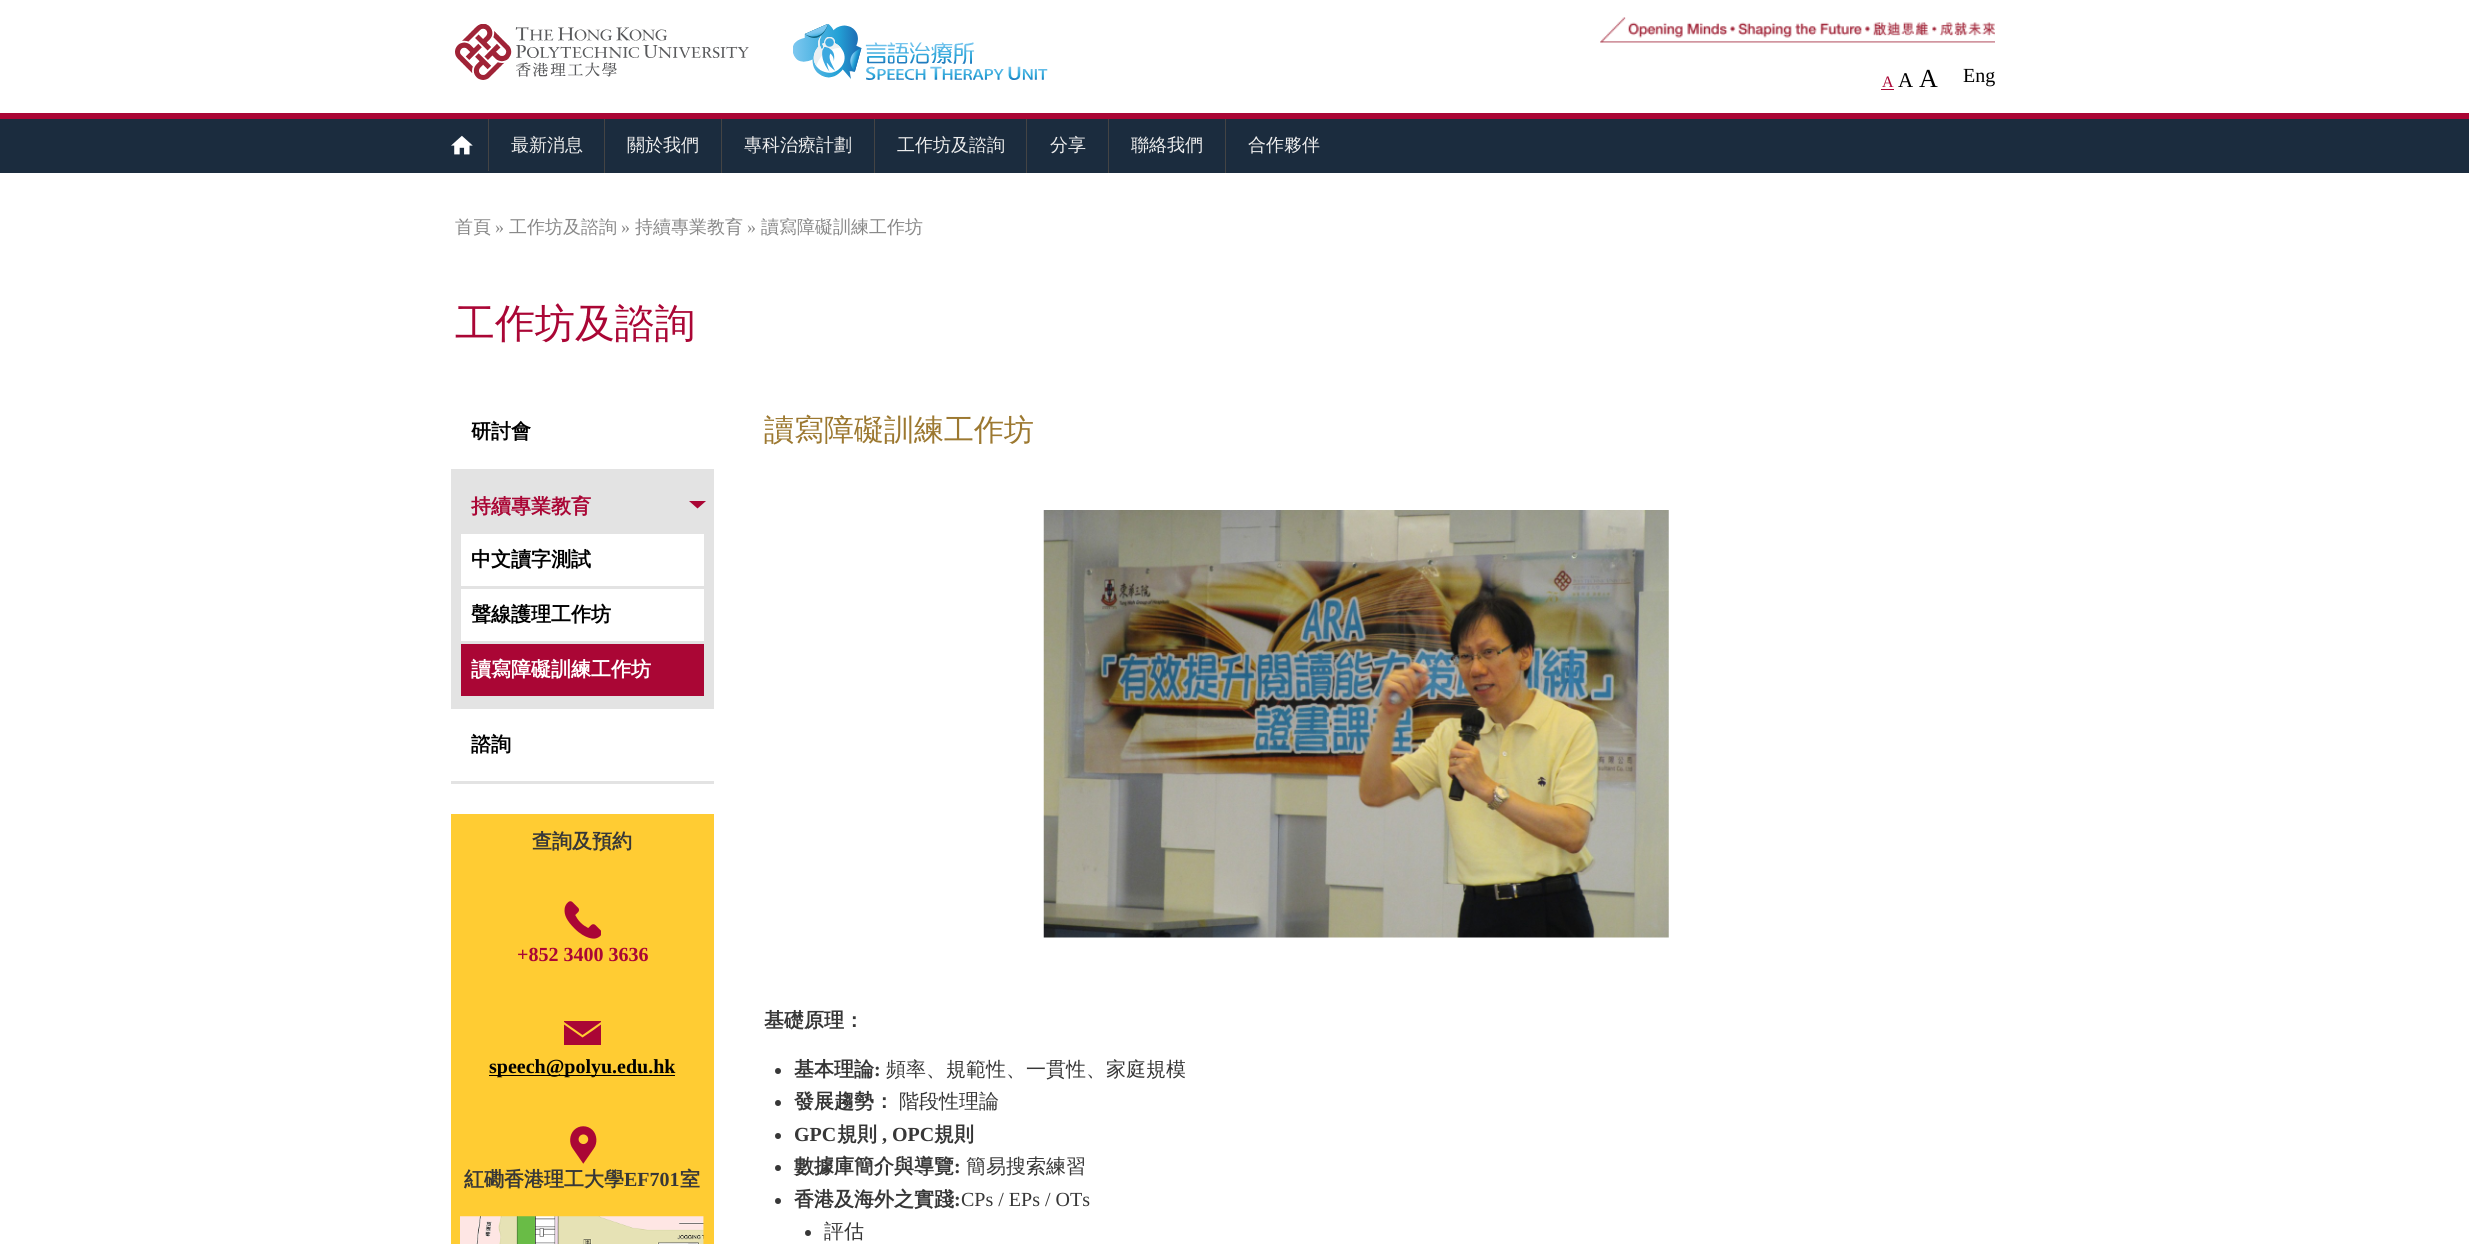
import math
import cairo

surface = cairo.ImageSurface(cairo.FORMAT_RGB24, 2469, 1244)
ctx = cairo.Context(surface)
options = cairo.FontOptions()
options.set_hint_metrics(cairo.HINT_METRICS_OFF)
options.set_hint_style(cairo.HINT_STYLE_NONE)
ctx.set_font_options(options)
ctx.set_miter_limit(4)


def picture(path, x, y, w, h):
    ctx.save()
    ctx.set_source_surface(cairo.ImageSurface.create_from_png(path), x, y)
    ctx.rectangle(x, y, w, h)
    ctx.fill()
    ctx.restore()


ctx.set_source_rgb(1, 1, 1)
ctx.paint()
picture("img1.png", 455, 24, 294, 56)
picture("img2.png", 793, 24, 255, 56)
picture("img3.png", 1600, 17, 395, 26)
ctx.select_font_face("Liberation Serif")
ctx.set_font_size(16)
ctx.set_source_rgb(0.667, 0.024, 0.208)
ctx.move_to(1882, 87)
ctx.show_text("A")
ctx.rectangle(1881, 89, 13, 1)
ctx.fill()
ctx.set_font_size(21)
ctx.set_source_rgb(0, 0, 0)
ctx.move_to(1898, 87)
ctx.show_text("A")
ctx.set_font_size(26)
ctx.move_to(1919, 87)
ctx.show_text("A")
ctx.set_font_size(20)
ctx.move_to(1963, 82)
ctx.show_text("Eng")
ctx.set_source_rgb(0.106, 0.173, 0.243)
ctx.rectangle(0, 119, 2469, 54)
ctx.fill()
ctx.set_source_rgb(0.667, 0.024, 0.208)
ctx.rectangle(0, 113, 2469, 6)
ctx.fill()
ctx.set_source_rgb(0.267, 0.267, 0.267)
ctx.rectangle(488, 119, 1, 52)
ctx.fill()
picture("img4.png", 451, 135, 22, 20)
ctx.rectangle(604, 119, 1, 54)
ctx.fill()
ctx.select_font_face("WenQuanYi Zen Hei Medium")
ctx.set_font_size(18)
ctx.set_source_rgb(0.933, 0.933, 0.933)
ctx.move_to(511, 151)
ctx.show_text("最新消息")
ctx.set_source_rgb(0.267, 0.267, 0.267)
ctx.rectangle(721, 119, 1, 54)
ctx.fill()
ctx.set_source_rgb(0.933, 0.933, 0.933)
ctx.move_to(627, 151)
ctx.show_text("關於我們")
ctx.set_source_rgb(0.267, 0.267, 0.267)
ctx.rectangle(874, 119, 1, 54)
ctx.fill()
ctx.set_source_rgb(0.933, 0.933, 0.933)
ctx.move_to(744, 151)
ctx.show_text("專科治療計劃")
ctx.set_source_rgb(0.267, 0.267, 0.267)
ctx.rectangle(1026, 119, 1, 54)
ctx.fill()
ctx.set_source_rgb(0.933, 0.933, 0.933)
ctx.move_to(897, 151)
ctx.show_text("工作坊及諮詢")
ctx.set_source_rgb(0.267, 0.267, 0.267)
ctx.rectangle(1108, 119, 1, 54)
ctx.fill()
ctx.set_source_rgb(0.933, 0.933, 0.933)
ctx.move_to(1050, 151)
ctx.show_text("分享")
ctx.set_source_rgb(0.267, 0.267, 0.267)
ctx.rectangle(1225, 119, 1, 54)
ctx.fill()
ctx.set_source_rgb(0.933, 0.933, 0.933)
ctx.move_to(1131, 151)
ctx.show_text("聯絡我們")
ctx.move_to(1248, 151)
ctx.show_text("合作夥伴")
ctx.set_source_rgb(0.533, 0.533, 0.533)
ctx.move_to(455, 233)
ctx.show_text("首頁")
ctx.select_font_face("Liberation Serif")
ctx.move_to(495, 233)
ctx.show_text("»")
ctx.select_font_face("WenQuanYi Zen Hei Medium")
ctx.move_to(509, 233)
ctx.show_text("工作坊及諮詢")
ctx.select_font_face("Liberation Serif")
ctx.move_to(621, 233)
ctx.show_text("»")
ctx.select_font_face("WenQuanYi Zen Hei Medium")
ctx.move_to(635, 233)
ctx.show_text("持續專業教育")
ctx.select_font_face("Liberation Serif")
ctx.move_to(747, 233)
ctx.show_text("»")
ctx.select_font_face("WenQuanYi Zen Hei Medium")
ctx.move_to(761, 233)
ctx.show_text("讀寫障礙訓練工作坊")
ctx.set_font_size(40)
ctx.set_source_rgb(0.667, 0.024, 0.208)
ctx.move_to(455, 337)
ctx.show_text("工作坊及諮詢")
ctx.set_source_rgb(0.89, 0.89, 0.89)
ctx.rectangle(451, 469, 263, 240)
ctx.fill()
ctx.select_font_face("WenQuanYi Zen Hei", cairo.FONT_SLANT_NORMAL, cairo.FONT_WEIGHT_BOLD)
ctx.set_font_size(20)
ctx.set_source_rgb(0, 0, 0)
ctx.move_to(471, 438)
ctx.show_text("研討會")
ctx.set_source_rgb(0.667, 0.024, 0.208)
ctx.new_path()
ctx.move_to(706, 501)
ctx.line_to(689, 501)
ctx.line_to(697.5, 508.5)
ctx.close_path()
ctx.fill()
ctx.move_to(471, 513)
ctx.show_text("持續專業教育")
ctx.set_source_rgb(1, 1, 1)
ctx.rectangle(461, 534, 243, 107)
ctx.fill()
ctx.set_source_rgb(0.89, 0.89, 0.89)
ctx.rectangle(461, 586, 243, 3)
ctx.fill()
ctx.set_source_rgb(0, 0, 0)
ctx.move_to(471, 566)
ctx.show_text("中文讀字測試")
ctx.move_to(471, 621)
ctx.show_text("聲線護理工作坊")
ctx.set_source_rgb(0.667, 0.024, 0.208)
ctx.rectangle(461, 644, 243, 52)
ctx.fill()
ctx.set_source_rgb(1, 1, 1)
ctx.move_to(471, 676)
ctx.show_text("讀寫障礙訓練工作坊")
ctx.set_source_rgb(0.89, 0.89, 0.89)
ctx.rectangle(451, 781, 263, 3)
ctx.fill()
ctx.set_source_rgb(0, 0, 0)
ctx.move_to(471, 751)
ctx.show_text("諮詢")
ctx.set_source_rgb(1, 0.8, 0.2)
ctx.rectangle(451, 814, 263, 430)
ctx.fill()
ctx.set_source_rgb(0.216, 0.216, 0.216)
ctx.move_to(532, 848)
ctx.show_text("查詢及預約")
picture("img5.png", 564, 901, 37, 38)
ctx.select_font_face("Liberation Serif", cairo.FONT_SLANT_NORMAL, cairo.FONT_WEIGHT_BOLD)
ctx.set_source_rgb(0.667, 0.024, 0.208)
ctx.move_to(517, 961)
ctx.show_text("+852 3400 3636")
ctx.new_path()
ctx.move_to(564, 1021)
ctx.line_to(564, 1022)
ctx.line_to(582.5, 1035)
ctx.line_to(601, 1022)
ctx.line_to(601, 1021)
ctx.close_path()
ctx.fill()
ctx.new_path()
ctx.move_to(582.5, 1037.5)
ctx.line_to(564, 1024.5)
ctx.line_to(564, 1045)
ctx.line_to(601, 1045)
ctx.line_to(601, 1024.5)
ctx.line_to(593.5, 1030)
ctx.close_path()
ctx.fill()
ctx.set_source_rgb(0, 0, 0)
ctx.rectangle(489, 1075, 186, 1)
ctx.fill()
ctx.move_to(489, 1073)
ctx.show_text("speech@polyu.edu.hk")
picture("img6.png", 570, 1126, 27, 38)
ctx.select_font_face("WenQuanYi Zen Hei", cairo.FONT_SLANT_NORMAL, cairo.FONT_WEIGHT_BOLD)
ctx.set_source_rgb(0.216, 0.216, 0.216)
ctx.move_to(464, 1186)
ctx.show_text("紅磡香港理工大學")
ctx.select_font_face("Liberation Serif", cairo.FONT_SLANT_NORMAL, cairo.FONT_WEIGHT_BOLD)
ctx.move_to(624, 1186)
ctx.show_text("EF701")
ctx.select_font_face("WenQuanYi Zen Hei", cairo.FONT_SLANT_NORMAL, cairo.FONT_WEIGHT_BOLD)
ctx.move_to(680, 1186)
ctx.show_text("室")
picture("img7.png", 460, 1216, 244, 28)
ctx.select_font_face("WenQuanYi Zen Hei Medium")
ctx.set_font_size(30)
ctx.set_source_rgb(0.612, 0.471, 0.188)
ctx.move_to(764, 440)
ctx.show_text("讀寫障礙訓練工作坊")
picture("img8.png", 1043, 510, 626, 428)
ctx.select_font_face("WenQuanYi Zen Hei", cairo.FONT_SLANT_NORMAL, cairo.FONT_WEIGHT_BOLD)
ctx.set_font_size(20)
ctx.set_source_rgb(0.216, 0.216, 0.216)
ctx.move_to(764, 1027)
ctx.show_text("基礎原理：")
ctx.new_path()
ctx.arc(778, 1071, 3, 0, 2 * math.pi)
ctx.fill()
ctx.move_to(794, 1076)
ctx.show_text("基本理論")
ctx.select_font_face("Liberation Serif", cairo.FONT_SLANT_NORMAL, cairo.FONT_WEIGHT_BOLD)
ctx.move_to(874, 1076)
ctx.show_text(":")
ctx.select_font_face("WenQuanYi Zen Hei Medium")
ctx.move_to(886, 1076)
ctx.show_text("頻率、規範性、一貫性、家庭規模")
ctx.new_path()
ctx.arc(778, 1103, 3, 0, 2 * math.pi)
ctx.fill()
ctx.select_font_face("WenQuanYi Zen Hei", cairo.FONT_SLANT_NORMAL, cairo.FONT_WEIGHT_BOLD)
ctx.move_to(794, 1108)
ctx.show_text("發展趨勢：")
ctx.select_font_face("WenQuanYi Zen Hei Medium")
ctx.move_to(899, 1108)
ctx.show_text("階段性理論")
ctx.new_path()
ctx.arc(778, 1136, 3, 0, 2 * math.pi)
ctx.fill()
ctx.select_font_face("Liberation Serif", cairo.FONT_SLANT_NORMAL, cairo.FONT_WEIGHT_BOLD)
ctx.move_to(794, 1141)
ctx.show_text("GPC")
ctx.select_font_face("WenQuanYi Zen Hei", cairo.FONT_SLANT_NORMAL, cairo.FONT_WEIGHT_BOLD)
ctx.move_to(837, 1141)
ctx.show_text("規則")
ctx.select_font_face("Liberation Serif", cairo.FONT_SLANT_NORMAL, cairo.FONT_WEIGHT_BOLD)
ctx.move_to(882, 1141)
ctx.show_text(", OPC")
ctx.select_font_face("WenQuanYi Zen Hei", cairo.FONT_SLANT_NORMAL, cairo.FONT_WEIGHT_BOLD)
ctx.move_to(934, 1141)
ctx.show_text("規則")
ctx.new_path()
ctx.arc(778, 1168, 3, 0, 2 * math.pi)
ctx.fill()
ctx.move_to(794, 1173)
ctx.show_text("數據庫簡介與導覽")
ctx.select_font_face("Liberation Serif", cairo.FONT_SLANT_NORMAL, cairo.FONT_WEIGHT_BOLD)
ctx.move_to(954, 1173)
ctx.show_text(":")
ctx.select_font_face("WenQuanYi Zen Hei Medium")
ctx.move_to(966, 1173)
ctx.show_text("簡易搜索練習")
ctx.new_path()
ctx.arc(778, 1201, 3, 0, 2 * math.pi)
ctx.fill()
ctx.select_font_face("WenQuanYi Zen Hei", cairo.FONT_SLANT_NORMAL, cairo.FONT_WEIGHT_BOLD)
ctx.move_to(794, 1206)
ctx.show_text("香港及海外之實踐")
ctx.select_font_face("Liberation Serif", cairo.FONT_SLANT_NORMAL, cairo.FONT_WEIGHT_BOLD)
ctx.move_to(954, 1206)
ctx.show_text(":")
ctx.select_font_face("Liberation Serif")
ctx.move_to(961, 1206)
ctx.show_text("CPs / EPs / OTs")
ctx.new_path()
ctx.arc(808, 1233, 3, 0, 2 * math.pi)
ctx.fill()
ctx.select_font_face("WenQuanYi Zen Hei Medium")
ctx.move_to(824, 1238)
ctx.show_text("評估")
surface.write_to_png("page.png")
